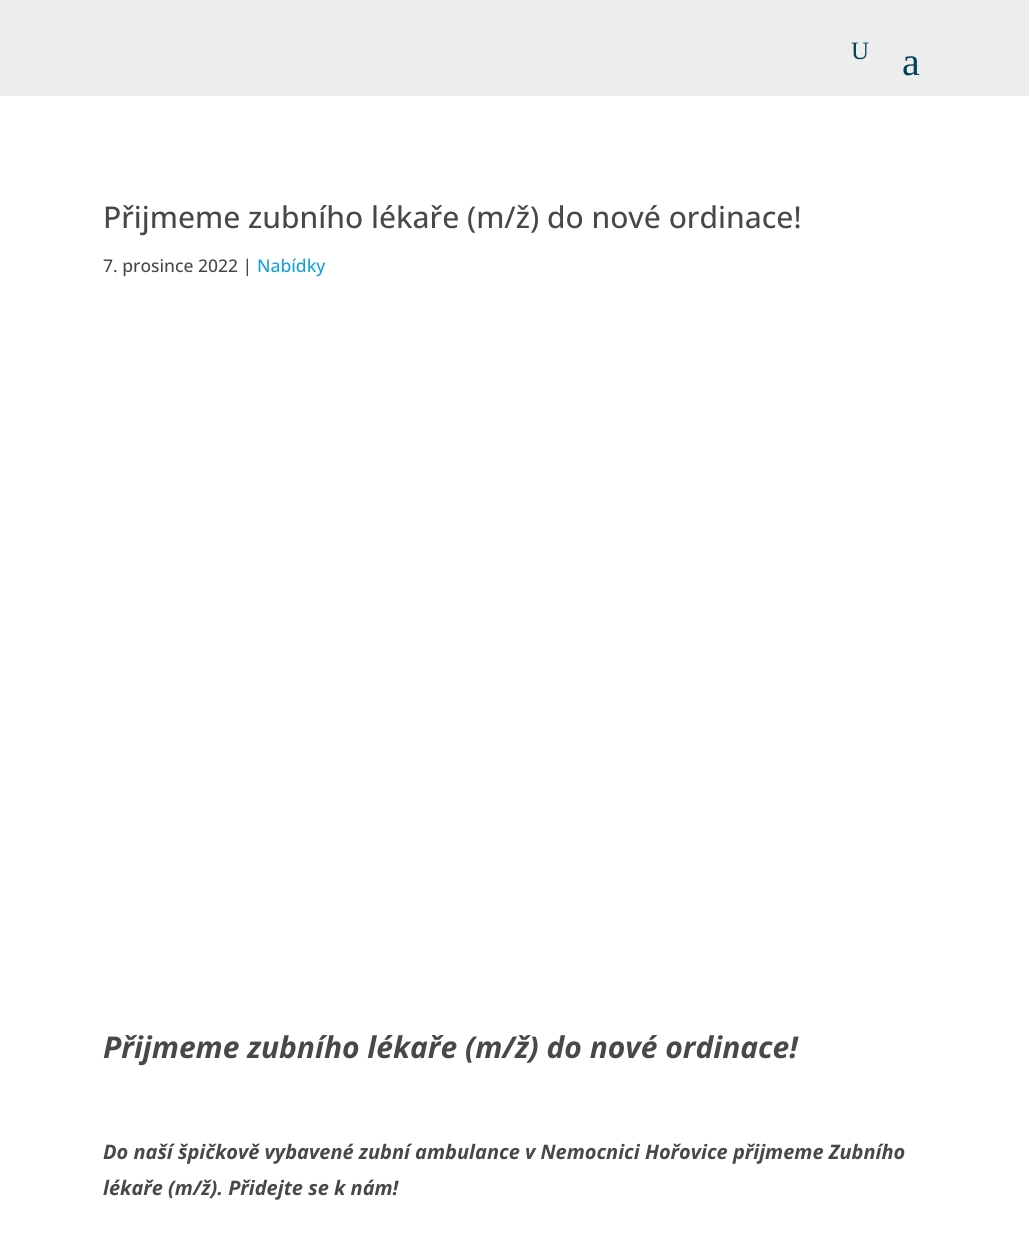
import math
import cairo

surface = cairo.ImageSurface(cairo.FORMAT_RGB24, 1029, 1240)
ctx = cairo.Context(surface)
options = cairo.FontOptions()
options.set_hint_metrics(cairo.HINT_METRICS_OFF)
options.set_hint_style(cairo.HINT_STYLE_NONE)
ctx.set_font_options(options)
ctx.set_miter_limit(4)


ctx.set_source_rgb(1, 1, 1)
ctx.paint()
ctx.set_source_rgb(0.929, 0.929, 0.929)
ctx.rectangle(0, 0, 1029, 96)
ctx.fill()
ctx.select_font_face("Liberation Serif")
ctx.set_font_size(25)
ctx.set_source_rgb(0, 0.263, 0.365)
ctx.move_to(851, 59)
ctx.show_text("U")
ctx.set_font_size(40)
ctx.move_to(902, 75)
ctx.show_text("a")
ctx.select_font_face("Open Sans Medium")
ctx.set_font_size(30)
ctx.set_source_rgb(0.282, 0.282, 0.282)
ctx.move_to(103, 228)
ctx.show_text("Přijmeme zubního lékaře (m/ž) do nové ordinace!")
ctx.set_font_size(17.5)
ctx.move_to(103, 272)
ctx.show_text("7. prosince 2022 |")
ctx.set_source_rgb(0.082, 0.631, 0.851)
ctx.move_to(257, 272)
ctx.show_text("Nabídky")
ctx.select_font_face("Open Sans", cairo.FONT_SLANT_ITALIC, cairo.FONT_WEIGHT_BOLD)
ctx.set_font_size(30)
ctx.set_source_rgb(0.282, 0.282, 0.282)
ctx.move_to(103, 1058)
ctx.show_text("Přijmeme zubního lékaře (m/ž) do nové ordinace!")
ctx.set_font_size(20)
ctx.move_to(103, 1159)
ctx.show_text("Do naší špičkově vybavené zubní ambulance v Nemocnici Hořovice přijmeme Zubního")
ctx.move_to(103, 1195)
ctx.show_text("lékaře (m/ž). Přidejte se k nám!")
surface.write_to_png("page.png")
